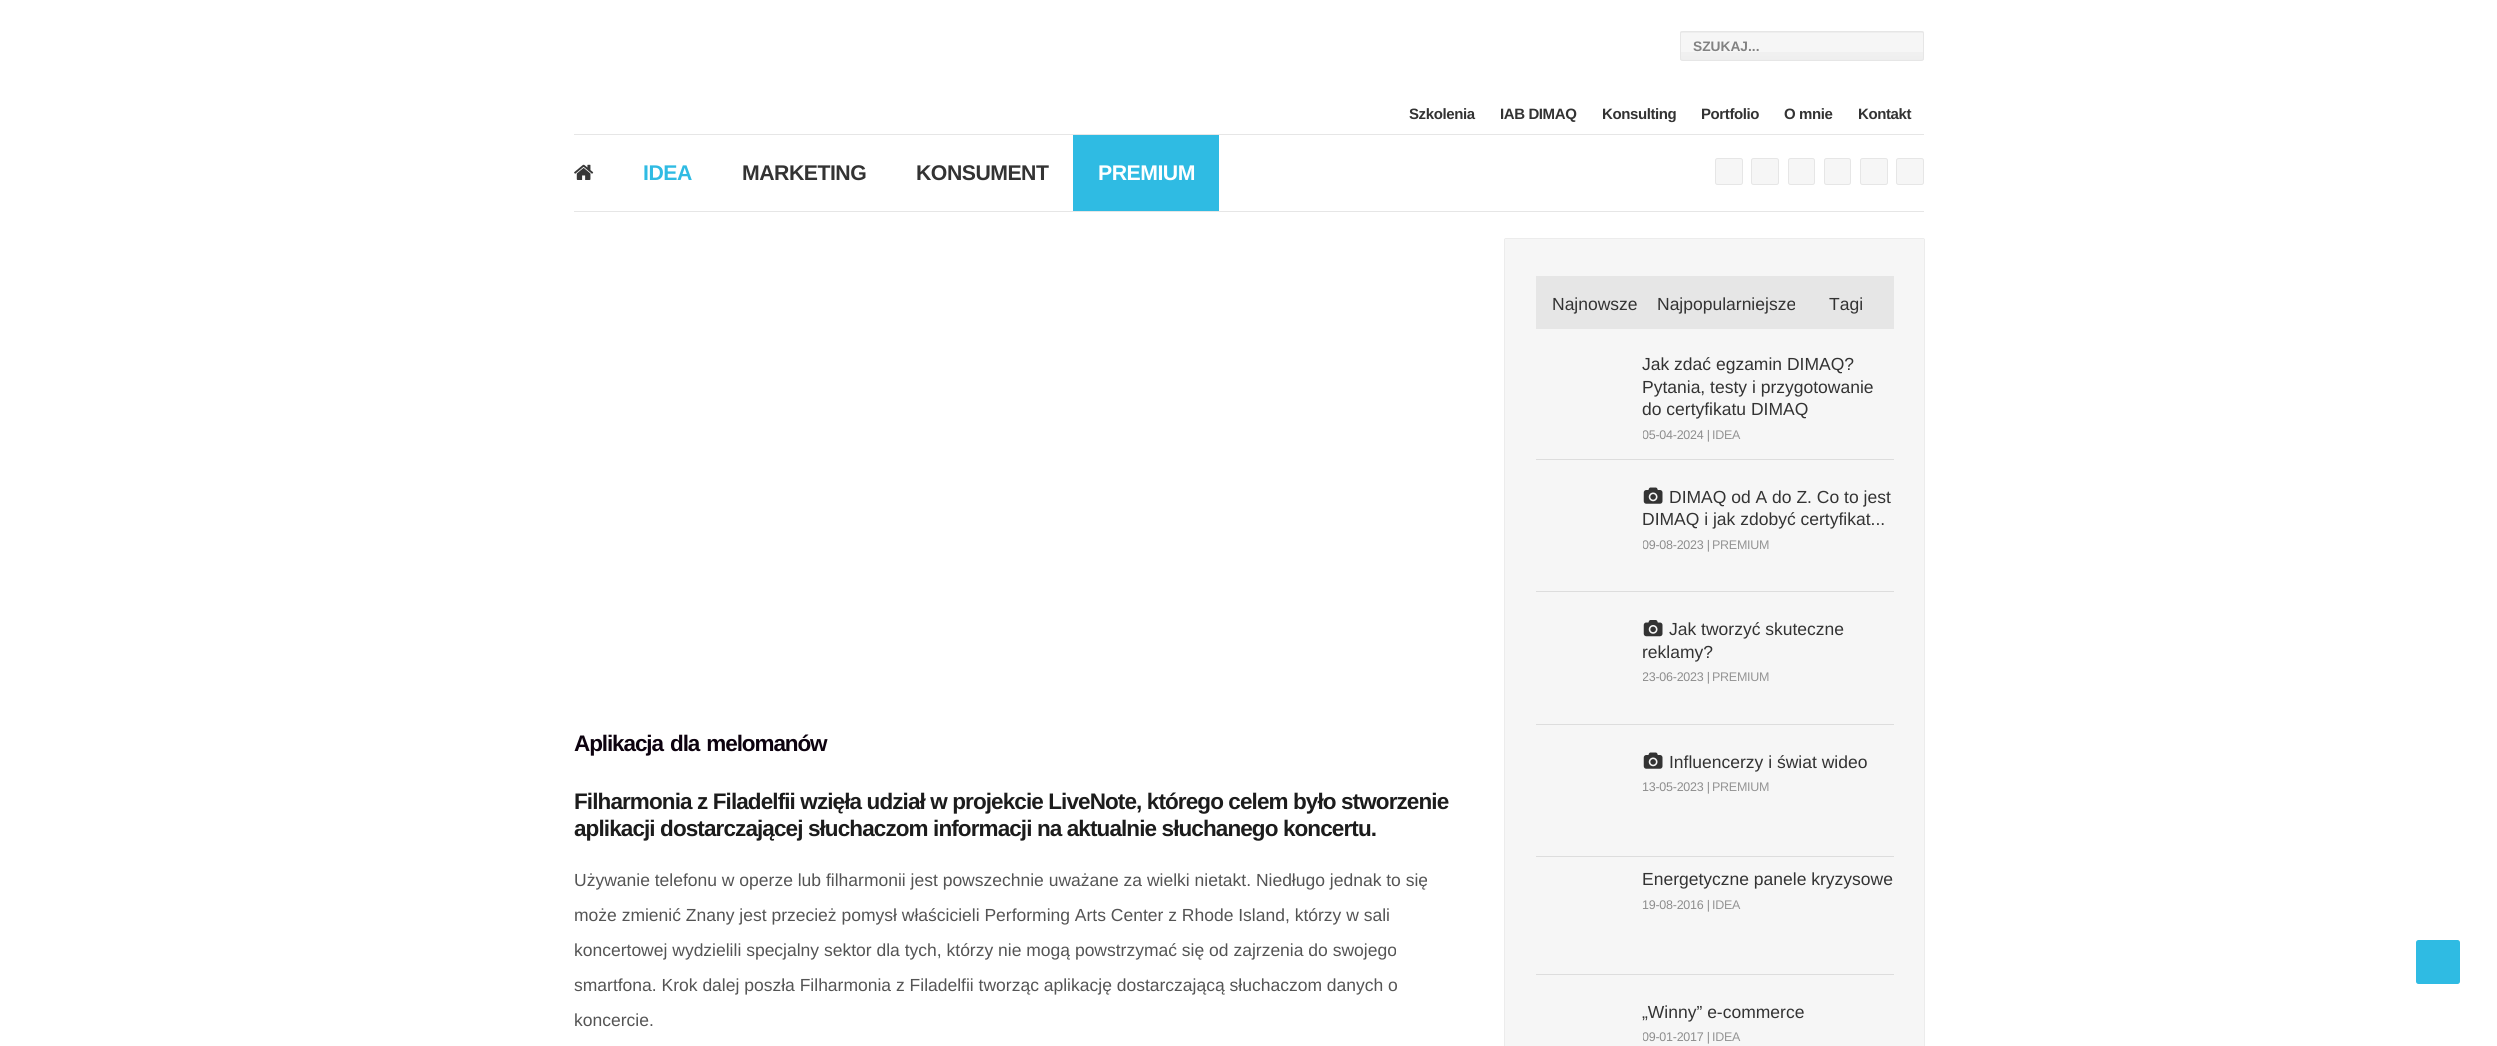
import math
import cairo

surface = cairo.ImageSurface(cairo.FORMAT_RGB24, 2497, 1046)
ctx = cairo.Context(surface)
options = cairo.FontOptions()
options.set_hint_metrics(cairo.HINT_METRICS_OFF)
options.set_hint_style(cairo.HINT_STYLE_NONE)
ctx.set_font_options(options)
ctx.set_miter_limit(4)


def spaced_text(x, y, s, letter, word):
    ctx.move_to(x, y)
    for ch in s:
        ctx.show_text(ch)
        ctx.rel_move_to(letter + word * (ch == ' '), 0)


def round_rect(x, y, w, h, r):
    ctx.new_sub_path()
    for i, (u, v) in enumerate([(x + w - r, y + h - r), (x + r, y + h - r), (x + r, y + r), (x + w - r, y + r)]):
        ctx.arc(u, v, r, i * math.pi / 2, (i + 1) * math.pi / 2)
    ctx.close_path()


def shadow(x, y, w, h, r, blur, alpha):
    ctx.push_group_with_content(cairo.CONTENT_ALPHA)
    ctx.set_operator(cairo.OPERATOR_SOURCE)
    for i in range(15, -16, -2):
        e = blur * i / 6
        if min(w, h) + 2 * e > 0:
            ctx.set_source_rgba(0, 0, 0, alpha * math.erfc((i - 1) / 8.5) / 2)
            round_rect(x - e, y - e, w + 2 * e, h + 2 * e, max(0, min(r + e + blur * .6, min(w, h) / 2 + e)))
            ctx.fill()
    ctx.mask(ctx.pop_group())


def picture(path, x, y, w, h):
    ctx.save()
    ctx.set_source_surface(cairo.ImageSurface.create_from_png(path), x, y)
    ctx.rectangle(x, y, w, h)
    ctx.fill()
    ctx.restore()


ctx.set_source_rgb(1, 1, 1)
ctx.paint()
ctx.set_source_rgb(0.902, 0.902, 0.902)
ctx.rectangle(574, 134, 1350, 1)
ctx.fill()
ctx.set_source_rgb(0.961, 0.961, 0.961)
round_rect(1680, 31, 244, 30, 2.5)
ctx.fill()
gradient = cairo.LinearGradient(1802, 5, 1802, 33)
gradient.add_color_stop_rgba(0, 0, 0, 0, 0)
gradient.add_color_stop_rgba(1, 0, 0, 0, 0.03)
ctx.set_source(gradient)
ctx.rectangle(1680, 31, 244, 2)
ctx.fill()
gradient = cairo.LinearGradient(1802, 32, 1802, 60)
gradient.add_color_stop_rgba(0, 0, 0, 0, 0)
gradient.add_color_stop_rgba(1, 0, 0, 0, 0.03)
ctx.set_source(gradient)
ctx.rectangle(1680, 52, 244, 8)
ctx.fill()
round_rect(1680.5, 31.5, 243, 29, 2)
ctx.set_source_rgb(0.902, 0.902, 0.902)
ctx.set_line_width(1)
ctx.stroke()
ctx.select_font_face("Liberation Sans", cairo.FONT_SLANT_NORMAL, cairo.FONT_WEIGHT_BOLD)
ctx.set_font_size(13.75)
ctx.set_source_rgb(0.51, 0.51, 0.51)
ctx.move_to(1693, 51)
ctx.show_text("SZUKAJ...")
ctx.set_font_size(15)
ctx.set_source_rgb(0.2, 0.2, 0.2)
spaced_text(1409, 119, "Szkolenia", -0.4, 0)
spaced_text(1500, 119, "IAB DIMAQ", -0.4, 0)
spaced_text(1602, 119, "Konsulting", -0.4, 0)
spaced_text(1701, 119, "Portfolio", -0.4, 0)
spaced_text(1784, 119, "O mnie", -0.4, 0)
spaced_text(1858, 119, "Kontakt", -0.4, 0)
ctx.set_source_rgb(0.902, 0.902, 0.902)
ctx.rectangle(574, 211, 1350, 1)
ctx.fill()
picture("img1.png", 574, 164, 20, 16)
ctx.set_font_size(21.25)
ctx.set_source_rgb(0.184, 0.733, 0.89)
spaced_text(643, 180, "IDEA", -0.5, 0)
ctx.set_source_rgb(0.2, 0.2, 0.2)
spaced_text(742, 180, "MARKETING", -0.5, 0)
spaced_text(916, 180, "KONSUMENT", -0.5, 0)
ctx.set_source_rgb(0.184, 0.733, 0.89)
ctx.rectangle(1073, 135, 146, 76)
ctx.fill()
ctx.set_source_rgb(1, 1, 1)
spaced_text(1098, 180, "PREMIUM", -0.5, 0)
ctx.set_source_rgb(0.961, 0.961, 0.961)
round_rect(1715.5, 158.5, 27, 26, 2)
ctx.fill_preserve()
ctx.set_source_rgb(0.902, 0.902, 0.902)
ctx.stroke()
ctx.set_source_rgb(0.961, 0.961, 0.961)
round_rect(1751.5, 158.5, 27, 26, 2)
ctx.fill_preserve()
ctx.set_source_rgb(0.902, 0.902, 0.902)
ctx.stroke()
ctx.set_source_rgb(0.961, 0.961, 0.961)
round_rect(1788.5, 158.5, 26, 26, 2)
ctx.fill_preserve()
ctx.set_source_rgb(0.902, 0.902, 0.902)
ctx.stroke()
ctx.set_source_rgb(0.961, 0.961, 0.961)
round_rect(1824.5, 158.5, 26, 26, 2)
ctx.fill_preserve()
ctx.set_source_rgb(0.902, 0.902, 0.902)
ctx.stroke()
ctx.set_source_rgb(0.961, 0.961, 0.961)
round_rect(1860.5, 158.5, 27, 26, 2)
ctx.fill_preserve()
ctx.set_source_rgb(0.902, 0.902, 0.902)
ctx.stroke()
ctx.set_source_rgb(0.961, 0.961, 0.961)
round_rect(1896.5, 158.5, 27, 26, 2)
ctx.fill_preserve()
ctx.set_source_rgb(0.902, 0.902, 0.902)
ctx.stroke()
ctx.set_font_size(22.5)
ctx.set_source_rgb(0.051, 0.008, 0.059)
spaced_text(574, 751, "Aplikacja dla melomanów", -1.1, 2)
ctx.set_source_rgb(0.11, 0.11, 0.11)
spaced_text(574, 809, "Filharmonia z Filadelfii wzięła udział w projekcie LiveNote, którego celem było stworzenie", -0.9, 0)
spaced_text(574, 836, "aplikacji dostarczającej słuchaczom informacji na aktualnie słuchanego koncertu.", -0.9, 0)
ctx.select_font_face("Liberation Sans")
ctx.set_font_size(17.5)
ctx.set_source_rgb(0.329, 0.329, 0.329)
ctx.move_to(574, 886)
ctx.show_text("Używanie telefonu w operze lub filharmonii jest powszechnie uważane za wielki nietakt. Niedługo jednak to się")
ctx.move_to(574, 921)
ctx.show_text("może zmienić Znany jest przecież pomysł właścicieli Performing Arts Center z Rhode Island, którzy w sali")
ctx.move_to(574, 956)
ctx.show_text("koncertowej wydzielili specjalny sektor dla tych, którzy nie mogą powstrzymać się od zajrzenia do swojego")
ctx.move_to(574, 991)
ctx.show_text("smartfona. Krok dalej poszła Filharmonia z Filadelfii tworząc aplikację dostarczającą słuchaczom danych o")
ctx.move_to(574, 1026)
ctx.show_text("koncercie.")
ctx.set_source_rgb(0, 0, 0)
shadow(1505, 239, 419, 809, 0, 0.5, 0.3)
ctx.set_source_rgb(0.961, 0.961, 0.961)
ctx.rectangle(1505, 239, 419, 807)
ctx.fill()
ctx.set_source_rgb(0.902, 0.902, 0.902)
ctx.rectangle(1536, 276, 358, 53)
ctx.fill()
ctx.set_source_rgb(0.2, 0.2, 0.2)
ctx.move_to(1552, 310)
ctx.show_text("Najnowsze")
ctx.move_to(1657, 310)
ctx.show_text("Najpopularniejsze")
ctx.move_to(1829, 310)
ctx.show_text("Tagi")
ctx.set_source_rgb(0.867, 0.867, 0.867)
ctx.rectangle(1536, 459, 358, 1)
ctx.fill()
ctx.set_source_rgb(0.2, 0.2, 0.2)
ctx.move_to(1642, 370)
ctx.show_text("Jak zdać egzamin DIMAQ?")
ctx.move_to(1642, 393)
ctx.show_text("Pytania, testy i przygotowanie")
ctx.move_to(1642, 415)
ctx.show_text("do certyfikatu DIMAQ")
ctx.save()
ctx.rectangle(1643, 426, 251, 17)
ctx.clip()
ctx.set_font_size(12.5)
ctx.set_source_rgb(0.553, 0.553, 0.553)
spaced_text(1642, 439, "05-04-2024 |", -0.25, 0)
ctx.restore()
ctx.set_font_size(12.5)
ctx.set_source_rgb(0.58, 0.58, 0.58)
spaced_text(1712, 439, "IDEA", -0.25, 0)
ctx.set_source_rgb(0.867, 0.867, 0.867)
ctx.rectangle(1536, 591, 358, 1)
ctx.fill()
picture("img2.png", 1643, 487, 20, 17)
ctx.set_font_size(17.5)
ctx.set_source_rgb(0.2, 0.2, 0.2)
ctx.move_to(1669, 503)
ctx.show_text("DIMAQ od A do Z. Co to jest")
ctx.move_to(1642, 525)
ctx.show_text("DIMAQ i jak zdobyć certyfikat...")
ctx.save()
ctx.rectangle(1643, 536, 251, 17)
ctx.clip()
ctx.set_font_size(12.5)
ctx.set_source_rgb(0.553, 0.553, 0.553)
spaced_text(1642, 549, "09-08-2023 |", -0.25, 0)
ctx.restore()
ctx.set_font_size(12.5)
ctx.set_source_rgb(0.58, 0.58, 0.58)
spaced_text(1712, 549, "PREMIUM", -0.25, 0)
ctx.set_source_rgb(0.867, 0.867, 0.867)
ctx.rectangle(1536, 724, 358, 1)
ctx.fill()
picture("img3.png", 1643, 620, 20, 17)
ctx.set_font_size(17.5)
ctx.set_source_rgb(0.2, 0.2, 0.2)
ctx.move_to(1669, 635)
ctx.show_text("Jak tworzyć skuteczne")
ctx.move_to(1642, 658)
ctx.show_text("reklamy?")
ctx.save()
ctx.rectangle(1643, 669, 251, 16)
ctx.clip()
ctx.set_font_size(12.5)
ctx.set_source_rgb(0.553, 0.553, 0.553)
spaced_text(1642, 681, "23-06-2023 |", -0.25, 0)
ctx.restore()
ctx.set_font_size(12.5)
ctx.set_source_rgb(0.58, 0.58, 0.58)
spaced_text(1712, 681, "PREMIUM", -0.25, 0)
ctx.set_source_rgb(0.867, 0.867, 0.867)
ctx.rectangle(1536, 856, 358, 1)
ctx.fill()
picture("img2.png", 1643, 752, 20, 17)
ctx.set_font_size(17.5)
ctx.set_source_rgb(0.2, 0.2, 0.2)
ctx.move_to(1669, 768)
ctx.show_text("Influencerzy i świat wideo")
ctx.set_font_size(12.5)
ctx.set_source_rgb(0.553, 0.553, 0.553)
spaced_text(1642, 791, "13-05-2023 |", -0.25, 0)
ctx.set_source_rgb(0.58, 0.58, 0.58)
spaced_text(1712, 791, "PREMIUM", -0.25, 0)
ctx.set_source_rgb(0.867, 0.867, 0.867)
ctx.rectangle(1536, 974, 358, 1)
ctx.fill()
ctx.set_font_size(17.5)
ctx.set_source_rgb(0.2, 0.2, 0.2)
ctx.move_to(1642, 885)
ctx.show_text("Energetyczne panele kryzysowe")
ctx.set_font_size(12.5)
ctx.set_source_rgb(0.553, 0.553, 0.553)
spaced_text(1642, 909, "19-08-2016 |", -0.25, 0)
ctx.set_source_rgb(0.58, 0.58, 0.58)
spaced_text(1712, 909, "IDEA", -0.25, 0)
ctx.set_font_size(17.5)
ctx.set_source_rgb(0.2, 0.2, 0.2)
ctx.move_to(1642, 1018)
ctx.show_text("„Winny” e-commerce")
ctx.save()
ctx.rectangle(1643, 1029, 251, 16)
ctx.clip()
ctx.set_font_size(12.5)
ctx.set_source_rgb(0.553, 0.553, 0.553)
spaced_text(1642, 1041, "09-01-2017 |", -0.25, 0)
ctx.restore()
ctx.set_font_size(12.5)
ctx.set_source_rgb(0.58, 0.58, 0.58)
spaced_text(1712, 1041, "IDEA", -0.25, 0)
ctx.set_source_rgb(0.184, 0.733, 0.89)
round_rect(2416, 940, 44, 44, 2.5)
ctx.fill()
surface.write_to_png("page.png")
